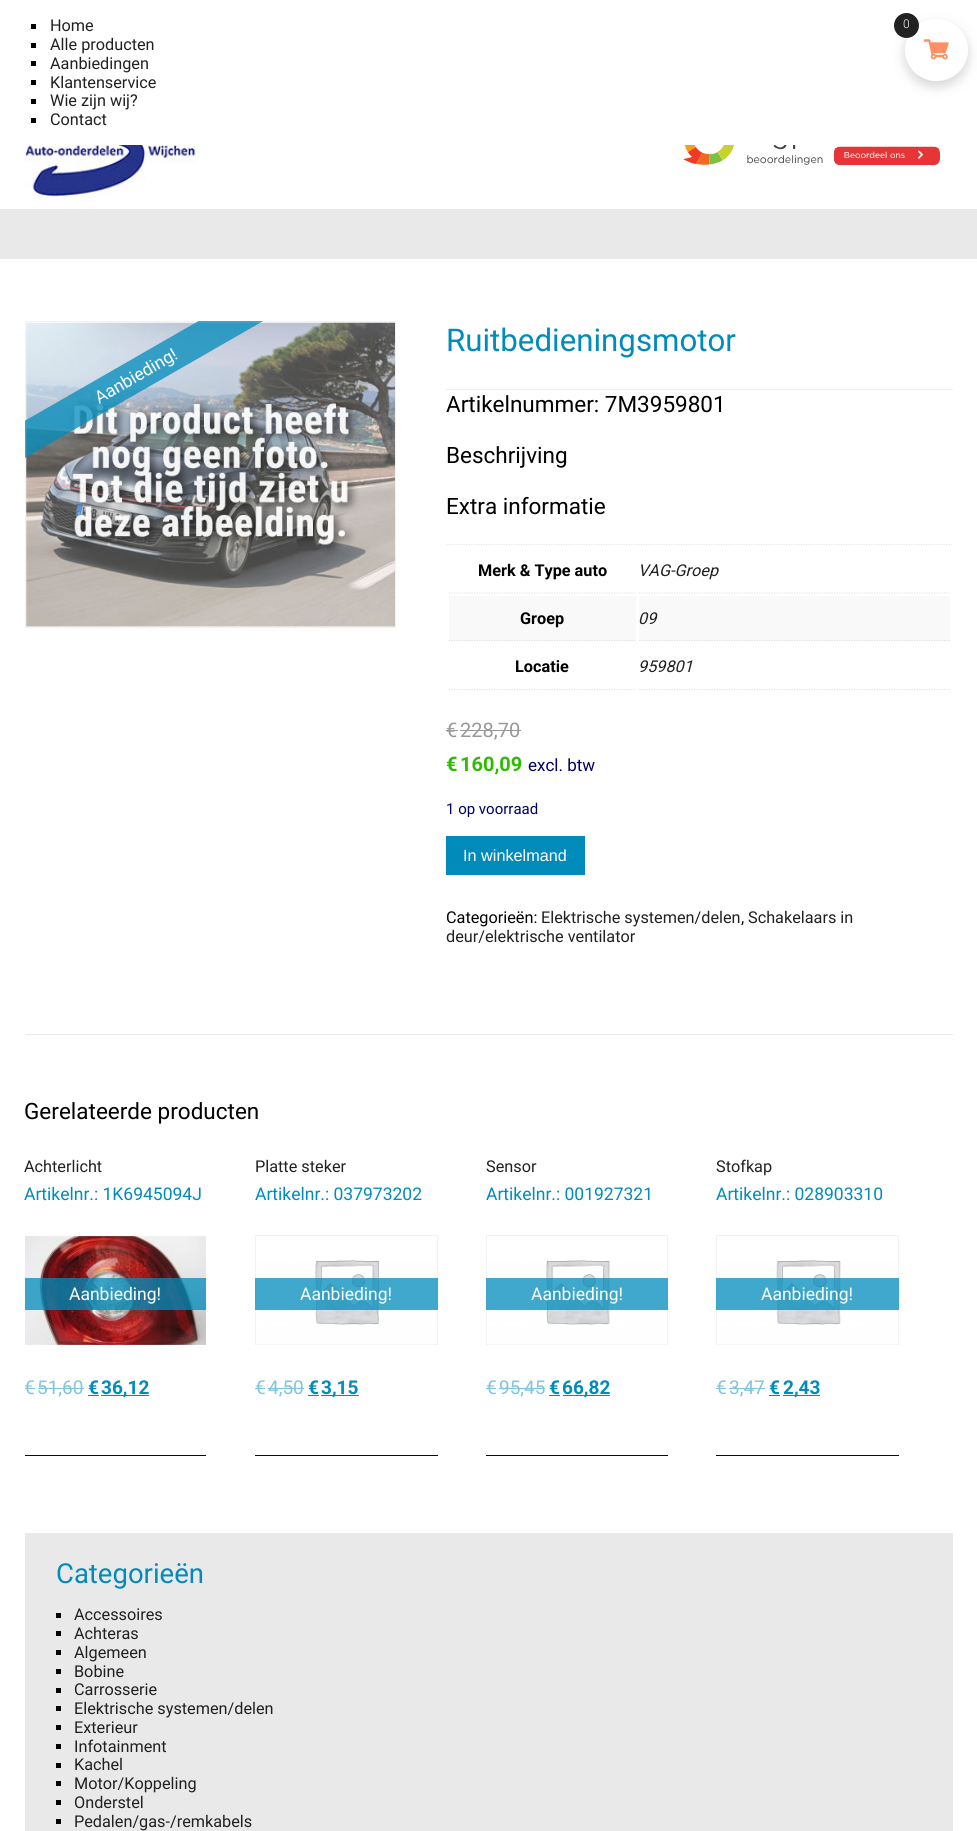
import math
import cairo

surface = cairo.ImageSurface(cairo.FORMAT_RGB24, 977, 1831)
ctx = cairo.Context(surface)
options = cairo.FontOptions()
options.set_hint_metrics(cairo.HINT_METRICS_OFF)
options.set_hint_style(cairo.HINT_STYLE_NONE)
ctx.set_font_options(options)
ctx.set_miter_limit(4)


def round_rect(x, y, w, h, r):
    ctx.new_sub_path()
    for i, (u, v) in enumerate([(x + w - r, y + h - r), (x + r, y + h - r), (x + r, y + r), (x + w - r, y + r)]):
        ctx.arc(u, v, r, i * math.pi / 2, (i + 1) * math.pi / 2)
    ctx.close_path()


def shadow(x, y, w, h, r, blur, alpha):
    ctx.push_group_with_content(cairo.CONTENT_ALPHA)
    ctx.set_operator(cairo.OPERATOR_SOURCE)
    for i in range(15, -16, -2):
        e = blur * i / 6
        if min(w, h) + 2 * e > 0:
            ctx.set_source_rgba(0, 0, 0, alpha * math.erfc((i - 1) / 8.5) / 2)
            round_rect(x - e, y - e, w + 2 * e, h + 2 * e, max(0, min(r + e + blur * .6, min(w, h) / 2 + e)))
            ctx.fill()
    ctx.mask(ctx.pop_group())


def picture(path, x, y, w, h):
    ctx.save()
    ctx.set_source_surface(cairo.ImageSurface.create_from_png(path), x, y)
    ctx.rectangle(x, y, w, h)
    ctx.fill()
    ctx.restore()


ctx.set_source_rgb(1, 1, 1)
ctx.paint()
ctx.set_source_rgb(0, 0, 0)
ctx.rectangle(31, 24, 5, 5)
ctx.fill()
ctx.select_font_face("Roboto")
ctx.set_font_size(16.25)
ctx.set_source_rgb(0.129, 0.129, 0.129)
ctx.move_to(50, 31)
ctx.show_text("Home")
ctx.set_source_rgb(0, 0, 0)
ctx.rectangle(31, 43, 5, 5)
ctx.fill()
ctx.set_source_rgb(0.129, 0.129, 0.129)
ctx.move_to(50, 50)
ctx.show_text("Alle producten")
ctx.set_source_rgb(0, 0, 0)
ctx.rectangle(31, 61, 5, 5)
ctx.fill()
ctx.set_source_rgb(0.129, 0.129, 0.129)
ctx.move_to(50, 69)
ctx.show_text("Aanbiedingen")
ctx.set_source_rgb(0, 0, 0)
ctx.rectangle(31, 80, 5, 5)
ctx.fill()
ctx.set_source_rgb(0.129, 0.129, 0.129)
ctx.move_to(50, 88)
ctx.show_text("Klantenservice")
ctx.set_source_rgb(0, 0, 0)
ctx.rectangle(31, 99, 5, 5)
ctx.fill()
ctx.set_source_rgb(0.129, 0.129, 0.129)
ctx.move_to(50, 106)
ctx.show_text("Wie zijn wij?")
ctx.set_source_rgb(0, 0, 0)
ctx.rectangle(31, 118, 5, 5)
ctx.fill()
ctx.set_source_rgb(0.129, 0.129, 0.129)
ctx.move_to(50, 125)
ctx.show_text("Contact")
ctx.set_source_rgb(0, 0, 0)
shadow(905, 24, 63, 62, 31, 6, 0.17)
ctx.set_source_rgb(1, 1, 1)
round_rect(905, 19, 63, 62, 31)
ctx.fill()
ctx.set_source_rgb(0.129, 0.129, 0.129)
ctx.arc(906.5, 25.5, 12.5, 0, 2 * math.pi)
ctx.fill()
ctx.select_font_face("Roboto Light")
ctx.set_font_size(12)
ctx.set_source_rgb(1, 1, 1)
ctx.move_to(903, 28)
ctx.show_text("0")
picture("img1.png", 923, 39, 26, 21)
picture("img2.png", 25, 145, 172, 52)
picture("img3.png", 670, 145, 271, 21)
ctx.set_source_rgb(0.914, 0.914, 0.914)
ctx.rectangle(0, 209, 977, 50)
ctx.fill()
ctx.rectangle(25.5, 321.5, 370, 306)
ctx.set_source_rgb(0.949, 0.949, 0.949)
ctx.set_line_width(1)
ctx.stroke()
picture("img4.png", 26, 322, 369, 305)
ctx.save()
ctx.rectangle(25, 321, 928, 1183)
ctx.clip()
ctx.set_source_rgba(0, 0.545, 0.733, 0.75)
ctx.new_path()
ctx.move_to(-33, 454)
ctx.line_to(289, 269)
ctx.line_to(305, 297)
ctx.line_to(-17, 482)
ctx.close_path()
ctx.fill()
ctx.restore()
ctx.select_font_face("Roboto")
ctx.set_font_size(17.5)
ctx.set_source_rgb(1, 1, 1)
ctx.save()
ctx.translate(99, 404)
ctx.rotate(-30 * math.pi / 180)
ctx.move_to(0, 0)
ctx.show_text("Aanbieding!")
ctx.restore()
ctx.set_source_rgb(0.941, 0.941, 0.941)
ctx.rectangle(446, 389, 507, 1)
ctx.fill()
ctx.set_font_size(31.25)
ctx.set_source_rgb(0, 0.545, 0.733)
ctx.move_to(446, 351)
ctx.show_text("Ruitbedieningsmotor")
ctx.set_font_size(22.5)
ctx.set_source_rgb(0, 0, 0)
ctx.move_to(446, 412)
ctx.show_text("Artikelnummer: 7M3959801")
ctx.move_to(446, 463)
ctx.show_text("Beschrijving")
ctx.move_to(446, 514)
ctx.show_text("Extra informatie")
ctx.new_path()
ctx.move_to(446, 544.5)
ctx.line_to(952.5, 544.5)
ctx.set_source_rgb(0.902, 0.902, 0.902)
ctx.set_line_width(1.2)
ctx.set_dash([1.25, 1.25])
ctx.stroke()
ctx.new_path()
ctx.move_to(449, 593)
ctx.line_to(636, 593)
ctx.stroke()
ctx.select_font_face("Roboto", cairo.FONT_SLANT_NORMAL, cairo.FONT_WEIGHT_BOLD)
ctx.set_font_size(16.25)
ctx.set_source_rgb(0, 0, 0)
ctx.move_to(478, 576)
ctx.show_text("Merk & Type auto")
ctx.new_path()
ctx.move_to(639, 593)
ctx.line_to(950, 593)
ctx.set_source_rgb(0.902, 0.902, 0.902)
ctx.stroke()
ctx.select_font_face("Roboto", cairo.FONT_SLANT_ITALIC)
ctx.set_source_rgb(0.129, 0.129, 0.129)
ctx.move_to(638, 576)
ctx.show_text("VAG-Groep")
ctx.set_source_rgb(0.976, 0.976, 0.976)
ctx.rectangle(449, 596, 187, 45)
ctx.fill()
ctx.new_path()
ctx.move_to(449, 640.5)
ctx.line_to(636, 640.5)
ctx.set_source_rgb(0.878, 0.878, 0.878)
ctx.stroke()
ctx.select_font_face("Roboto", cairo.FONT_SLANT_NORMAL, cairo.FONT_WEIGHT_BOLD)
ctx.set_source_rgb(0, 0, 0)
ctx.move_to(520, 624)
ctx.show_text("Groep")
ctx.set_source_rgb(0.976, 0.976, 0.976)
ctx.rectangle(639, 596, 311, 45)
ctx.fill()
ctx.new_path()
ctx.move_to(639, 640.5)
ctx.line_to(950, 640.5)
ctx.set_source_rgb(0.878, 0.878, 0.878)
ctx.stroke()
ctx.select_font_face("Roboto", cairo.FONT_SLANT_ITALIC)
ctx.set_source_rgb(0.129, 0.129, 0.129)
ctx.move_to(638, 624)
ctx.show_text("09")
ctx.new_path()
ctx.move_to(449, 689.5)
ctx.line_to(636, 689.5)
ctx.set_source_rgb(0.902, 0.902, 0.902)
ctx.stroke()
ctx.select_font_face("Roboto", cairo.FONT_SLANT_NORMAL, cairo.FONT_WEIGHT_BOLD)
ctx.set_source_rgb(0, 0, 0)
ctx.move_to(515, 672)
ctx.show_text("Locatie")
ctx.new_path()
ctx.move_to(639, 689.5)
ctx.line_to(950, 689.5)
ctx.set_source_rgb(0.902, 0.902, 0.902)
ctx.stroke()
ctx.select_font_face("Roboto", cairo.FONT_SLANT_ITALIC)
ctx.set_source_rgb(0.129, 0.129, 0.129)
ctx.move_to(638, 672)
ctx.show_text("959801")
ctx.select_font_face("Roboto")
ctx.set_font_size(20)
ctx.set_source_rgb(0.6, 0.6, 0.6)
ctx.move_to(446, 737)
ctx.show_text("€")
ctx.rectangle(446, 730, 12, 1)
ctx.fill()
ctx.move_to(460, 737)
ctx.show_text("228,70")
ctx.rectangle(460, 730, 61, 1)
ctx.fill()
ctx.select_font_face("Roboto", cairo.FONT_SLANT_NORMAL, cairo.FONT_WEIGHT_BOLD)
ctx.set_source_rgb(0.18, 0.733, 0)
ctx.move_to(446, 771)
ctx.show_text("€")
ctx.move_to(460, 771)
ctx.show_text("160,09")
ctx.select_font_face("Roboto")
ctx.set_font_size(17)
ctx.set_source_rgb(0, 0, 0.4)
ctx.move_to(528, 771)
ctx.show_text("excl. btw")
ctx.set_font_size(15)
ctx.move_to(446, 814)
ctx.show_text("1 op voorraad")
ctx.set_source_rgb(0, 0.545, 0.733)
ctx.rectangle(446, 836, 139, 39)
ctx.fill()
ctx.select_font_face("Liberation Sans")
ctx.set_font_size(16.25)
ctx.set_source_rgb(1, 1, 1)
ctx.move_to(463, 861)
ctx.show_text("In winkelmand")
ctx.select_font_face("Roboto")
ctx.set_source_rgb(0, 0, 0)
ctx.move_to(446, 923)
ctx.show_text("Categorieën:")
ctx.set_source_rgb(0.129, 0.129, 0.129)
ctx.move_to(541, 923)
ctx.show_text("Elektrische systemen/delen")
ctx.set_source_rgb(0, 0, 0)
ctx.move_to(741, 923)
ctx.show_text(",")
ctx.set_source_rgb(0.129, 0.129, 0.129)
ctx.move_to(748, 923)
ctx.show_text("Schakelaars in")
ctx.move_to(446, 942)
ctx.show_text("deur/elektrische ventilator")
ctx.set_source_rgb(0.914, 0.914, 0.914)
ctx.rectangle(25, 1034, 928, 1)
ctx.fill()
ctx.set_font_size(22.5)
ctx.set_source_rgb(0, 0, 0)
ctx.move_to(24, 1119)
ctx.show_text("Gerelateerde producten")
ctx.set_source_rgb(0, 0, 0.4)
ctx.rectangle(25, 1455, 181, 1)
ctx.fill()
ctx.set_font_size(16.25)
ctx.set_source_rgb(0.129, 0.129, 0.129)
ctx.move_to(24, 1172)
ctx.show_text("Achterlicht")
ctx.set_font_size(17.5)
ctx.set_source_rgb(0, 0.545, 0.733)
ctx.move_to(24, 1200)
ctx.show_text("Artikelnr.: 1K6945094J")
picture("img5.png", 25, 1236, 181, 109)
ctx.set_source_rgba(0, 0.545, 0.733, 0.75)
ctx.rectangle(25, 1278, 181, 32)
ctx.fill()
ctx.set_source_rgb(1, 1, 1)
ctx.move_to(69, 1300)
ctx.show_text("Aanbieding!")
ctx.set_font_size(19)
ctx.set_source_rgb(0.502, 0.773, 0.867)
ctx.move_to(24, 1394)
ctx.show_text("€")
ctx.rectangle(25, 1388, 10, 1)
ctx.fill()
ctx.move_to(37, 1394)
ctx.show_text("51,60")
ctx.rectangle(38, 1388, 46, 1)
ctx.fill()
ctx.select_font_face("Roboto", cairo.FONT_SLANT_NORMAL, cairo.FONT_WEIGHT_BOLD)
ctx.set_source_rgb(0, 0.545, 0.733)
ctx.move_to(88, 1394)
ctx.show_text("€")
ctx.rectangle(101, 1395, 48, 1)
ctx.fill()
ctx.move_to(101, 1394)
ctx.show_text("36,12")
ctx.rectangle(88, 1395, 11, 1)
ctx.fill()
ctx.set_source_rgb(0, 0, 0.4)
ctx.rectangle(255, 1455, 183, 1)
ctx.fill()
ctx.select_font_face("Roboto")
ctx.set_font_size(16.25)
ctx.set_source_rgb(0.129, 0.129, 0.129)
ctx.move_to(255, 1172)
ctx.show_text("Platte steker")
ctx.set_font_size(17.5)
ctx.set_source_rgb(0, 0.545, 0.733)
ctx.move_to(255, 1200)
ctx.show_text("Artikelnr.: 037973202")
ctx.rectangle(255.5, 1235.5, 182, 109)
ctx.set_source_rgb(0.949, 0.949, 0.949)
ctx.set_line_width(1)
ctx.set_dash([])
ctx.stroke()
picture("img6.png", 257, 1260, 179, 85)
ctx.set_source_rgba(0, 0.545, 0.733, 0.75)
ctx.rectangle(255, 1278, 183, 32)
ctx.fill()
ctx.set_source_rgb(1, 1, 1)
ctx.move_to(300, 1300)
ctx.show_text("Aanbieding!")
ctx.set_font_size(19)
ctx.set_source_rgb(0.502, 0.773, 0.867)
ctx.move_to(255, 1394)
ctx.show_text("€")
ctx.rectangle(255, 1388, 10, 1)
ctx.fill()
ctx.move_to(268, 1394)
ctx.show_text("4,50")
ctx.rectangle(268, 1388, 36, 1)
ctx.fill()
ctx.select_font_face("Roboto", cairo.FONT_SLANT_NORMAL, cairo.FONT_WEIGHT_BOLD)
ctx.set_source_rgb(0, 0.545, 0.733)
ctx.move_to(308, 1394)
ctx.show_text("€")
ctx.rectangle(321, 1395, 38, 1)
ctx.fill()
ctx.move_to(321, 1394)
ctx.show_text("3,15")
ctx.rectangle(308, 1395, 11, 1)
ctx.fill()
ctx.set_source_rgb(0, 0, 0.4)
ctx.rectangle(486, 1455, 182, 1)
ctx.fill()
ctx.select_font_face("Roboto")
ctx.set_font_size(16.25)
ctx.set_source_rgb(0.129, 0.129, 0.129)
ctx.move_to(486, 1172)
ctx.show_text("Sensor")
ctx.set_font_size(17.5)
ctx.set_source_rgb(0, 0.545, 0.733)
ctx.move_to(486, 1200)
ctx.show_text("Artikelnr.: 001927321")
ctx.rectangle(486.5, 1235.5, 181, 109)
ctx.set_source_rgb(0.949, 0.949, 0.949)
ctx.stroke()
picture("img7.png", 488, 1260, 178, 85)
ctx.set_source_rgba(0, 0.545, 0.733, 0.75)
ctx.rectangle(486, 1278, 182, 32)
ctx.fill()
ctx.set_source_rgb(1, 1, 1)
ctx.move_to(531, 1300)
ctx.show_text("Aanbieding!")
ctx.set_font_size(19)
ctx.set_source_rgb(0.502, 0.773, 0.867)
ctx.move_to(486, 1394)
ctx.show_text("€")
ctx.rectangle(486, 1388, 10, 1)
ctx.fill()
ctx.move_to(499, 1394)
ctx.show_text("95,45")
ctx.rectangle(499, 1388, 46, 1)
ctx.fill()
ctx.select_font_face("Roboto", cairo.FONT_SLANT_NORMAL, cairo.FONT_WEIGHT_BOLD)
ctx.set_source_rgb(0, 0.545, 0.733)
ctx.move_to(549, 1394)
ctx.show_text("€")
ctx.rectangle(549, 1395, 11, 1)
ctx.fill()
ctx.rectangle(563, 1395, 47, 1)
ctx.fill()
ctx.move_to(562, 1394)
ctx.show_text("66,82")
ctx.set_source_rgb(0, 0, 0.4)
ctx.rectangle(716, 1455, 183, 1)
ctx.fill()
ctx.select_font_face("Roboto")
ctx.set_font_size(16.25)
ctx.set_source_rgb(0.129, 0.129, 0.129)
ctx.move_to(716, 1172)
ctx.show_text("Stofkap")
ctx.set_font_size(17.5)
ctx.set_source_rgb(0, 0.545, 0.733)
ctx.move_to(716, 1200)
ctx.show_text("Artikelnr.: 028903310")
ctx.rectangle(716.5, 1235.5, 182, 109)
ctx.set_source_rgb(0.949, 0.949, 0.949)
ctx.stroke()
picture("img8.png", 718, 1260, 179, 85)
ctx.set_source_rgba(0, 0.545, 0.733, 0.75)
ctx.rectangle(716, 1278, 183, 32)
ctx.fill()
ctx.set_source_rgb(1, 1, 1)
ctx.move_to(761, 1300)
ctx.show_text("Aanbieding!")
ctx.set_font_size(19)
ctx.set_source_rgb(0.502, 0.773, 0.867)
ctx.move_to(716, 1394)
ctx.show_text("€")
ctx.rectangle(716, 1388, 10, 1)
ctx.fill()
ctx.move_to(729, 1394)
ctx.show_text("3,47")
ctx.rectangle(729, 1388, 36, 1)
ctx.fill()
ctx.select_font_face("Roboto", cairo.FONT_SLANT_NORMAL, cairo.FONT_WEIGHT_BOLD)
ctx.set_source_rgb(0, 0.545, 0.733)
ctx.move_to(769, 1394)
ctx.show_text("€")
ctx.rectangle(769, 1395, 11, 1)
ctx.fill()
ctx.rectangle(783, 1395, 37, 1)
ctx.fill()
ctx.move_to(783, 1394)
ctx.show_text("2,43")
ctx.set_source_rgb(0.914, 0.914, 0.914)
ctx.rectangle(25, 1533, 928, 298)
ctx.fill()
ctx.select_font_face("Roboto")
ctx.set_font_size(27.5)
ctx.set_source_rgb(0, 0.545, 0.733)
ctx.move_to(56, 1583)
ctx.show_text("Categorieën")
ctx.set_source_rgb(0, 0, 0)
ctx.rectangle(56, 1613, 5, 5)
ctx.fill()
ctx.set_font_size(16.25)
ctx.set_source_rgb(0.129, 0.129, 0.129)
ctx.move_to(74, 1620)
ctx.show_text("Accessoires")
ctx.set_source_rgb(0, 0, 0)
ctx.rectangle(56, 1631, 5, 5)
ctx.fill()
ctx.set_source_rgb(0.129, 0.129, 0.129)
ctx.move_to(74, 1639)
ctx.show_text("Achteras")
ctx.set_source_rgb(0, 0, 0)
ctx.rectangle(56, 1650, 5, 5)
ctx.fill()
ctx.set_source_rgb(0.129, 0.129, 0.129)
ctx.move_to(74, 1658)
ctx.show_text("Algemeen")
ctx.set_source_rgb(0, 0, 0)
ctx.rectangle(56, 1669, 5, 5)
ctx.fill()
ctx.set_source_rgb(0.129, 0.129, 0.129)
ctx.move_to(74, 1677)
ctx.show_text("Bobine")
ctx.set_source_rgb(0, 0, 0)
ctx.rectangle(56, 1688, 5, 5)
ctx.fill()
ctx.set_source_rgb(0.129, 0.129, 0.129)
ctx.move_to(74, 1695)
ctx.show_text("Carrosserie")
ctx.set_source_rgb(0, 0, 0)
ctx.rectangle(56, 1706, 5, 5)
ctx.fill()
ctx.set_source_rgb(0.129, 0.129, 0.129)
ctx.move_to(74, 1714)
ctx.show_text("Elektrische systemen/delen")
ctx.set_source_rgb(0, 0, 0)
ctx.rectangle(56, 1725, 5, 5)
ctx.fill()
ctx.set_source_rgb(0.129, 0.129, 0.129)
ctx.move_to(74, 1733)
ctx.show_text("Exterieur")
ctx.set_source_rgb(0, 0, 0)
ctx.rectangle(56, 1744, 5, 5)
ctx.fill()
ctx.set_source_rgb(0.129, 0.129, 0.129)
ctx.move_to(74, 1752)
ctx.show_text("Infotainment")
ctx.set_source_rgb(0, 0, 0)
ctx.rectangle(56, 1763, 5, 5)
ctx.fill()
ctx.set_source_rgb(0.129, 0.129, 0.129)
ctx.move_to(74, 1770)
ctx.show_text("Kachel")
ctx.set_source_rgb(0, 0, 0)
ctx.rectangle(56, 1781, 5, 5)
ctx.fill()
ctx.set_source_rgb(0.129, 0.129, 0.129)
ctx.move_to(74, 1789)
ctx.show_text("Motor/Koppeling")
ctx.set_source_rgb(0, 0, 0)
ctx.rectangle(56, 1800, 5, 5)
ctx.fill()
ctx.set_source_rgb(0.129, 0.129, 0.129)
ctx.move_to(74, 1808)
ctx.show_text("Onderstel")
ctx.set_source_rgb(0, 0, 0)
ctx.rectangle(56, 1819, 5, 5)
ctx.fill()
ctx.set_source_rgb(0.129, 0.129, 0.129)
ctx.move_to(74, 1827)
ctx.show_text("Pedalen/gas-/remkabels")
surface.write_to_png("page.png")
